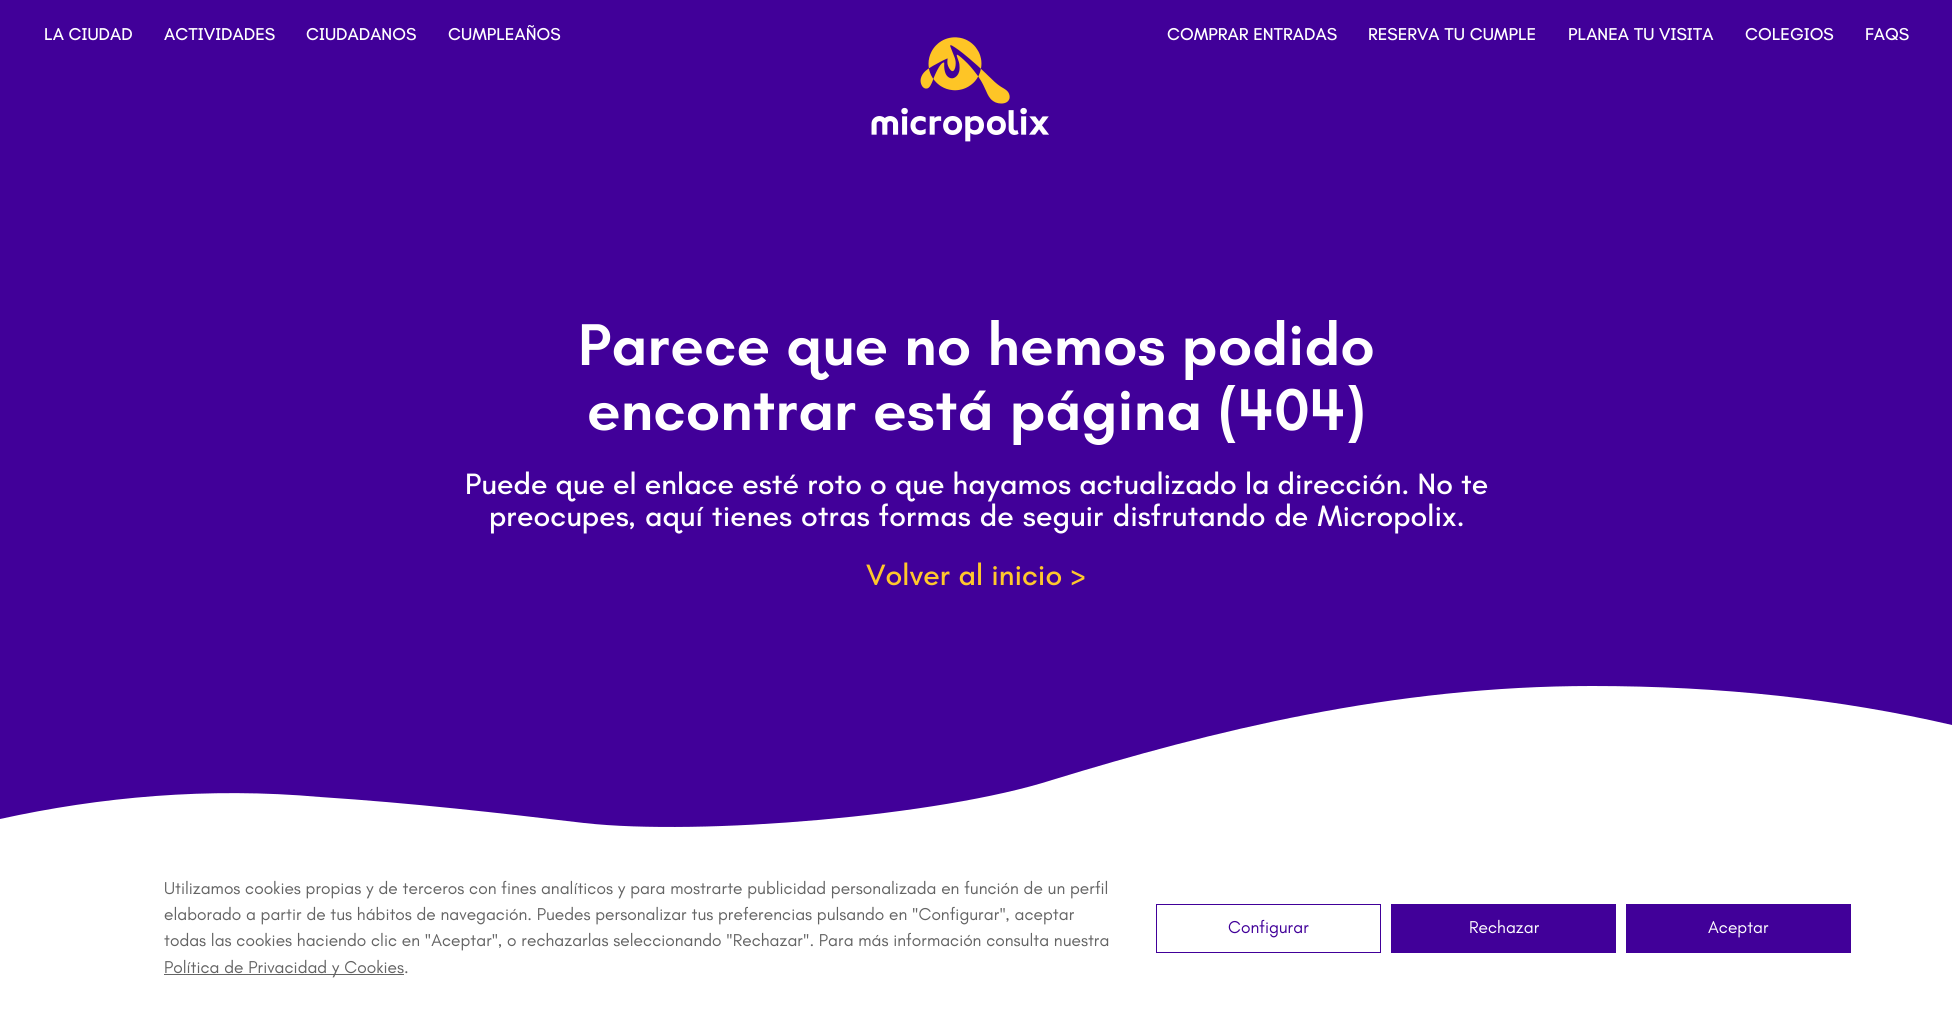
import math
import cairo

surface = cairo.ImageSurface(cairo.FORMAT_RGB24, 1952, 1015)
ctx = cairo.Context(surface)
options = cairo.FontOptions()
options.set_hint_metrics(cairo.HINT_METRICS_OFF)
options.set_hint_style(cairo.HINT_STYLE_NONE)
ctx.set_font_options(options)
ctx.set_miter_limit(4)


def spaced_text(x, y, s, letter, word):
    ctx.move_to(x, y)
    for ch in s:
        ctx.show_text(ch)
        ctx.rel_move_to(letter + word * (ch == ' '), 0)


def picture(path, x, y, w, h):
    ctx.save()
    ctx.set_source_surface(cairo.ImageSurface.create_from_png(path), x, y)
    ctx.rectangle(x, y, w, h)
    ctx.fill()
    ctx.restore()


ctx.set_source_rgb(0.255, 0, 0.6)
ctx.paint()
ctx.select_font_face("Teachers Medium")
ctx.set_font_size(17.5)
ctx.set_source_rgb(1, 1, 1)
ctx.move_to(44, 40)
ctx.show_text("LA CIUDAD")
ctx.move_to(164, 40)
ctx.show_text("ACTIVIDADES")
ctx.move_to(306, 40)
ctx.show_text("CIUDADANOS")
ctx.move_to(448, 40)
ctx.show_text("CUMPLEAÑOS")
ctx.move_to(1167, 40)
ctx.show_text("COMPRAR ENTRADAS")
ctx.move_to(1368, 40)
ctx.show_text("RESERVA TU CUMPLE")
ctx.move_to(1568, 40)
ctx.show_text("PLANEA TU VISITA")
ctx.move_to(1745, 40)
ctx.show_text("COLEGIOS")
ctx.move_to(1865, 40)
ctx.show_text("FAQS")
picture("img1.png", 871, 37, 178, 105)
ctx.select_font_face("Teachers SemiBold")
ctx.set_font_size(60)
ctx.move_to(578, 365)
ctx.show_text("Parece que no hemos podido")
ctx.move_to(587, 430)
ctx.show_text("encontrar está página (404)")
ctx.select_font_face("Teachers Medium")
ctx.set_font_size(30)
ctx.move_to(465, 494)
ctx.show_text("Puede que el enlace esté roto o que hayamos actualizado la dirección. No te")
spaced_text(489, 526, "preocupes, aquí tienes otras formas de seguir disfrutando de Micropolix.", 0, 1)
ctx.set_source_rgb(1, 0.78, 0.173)
ctx.move_to(866, 585)
ctx.show_text("Volver al inicio >")
ctx.set_source_rgb(1, 1, 1)
ctx.new_path()
ctx.move_to(1952, 906)
ctx.line_to(1952, 725)
ctx.curve_to(1840, 699, 1720, 686, 1592, 686)
ctx.curve_to(1392, 686, 1212, 731, 1052, 780)
ctx.curve_to(940, 816, 700, 836, 584, 823)
ctx.curve_to(500, 813, 412, 803, 320, 797)
ctx.curve_to(208, 787, 100, 797, 0, 819)
ctx.line_to(0, 906)
ctx.close_path()
ctx.fill()
ctx.rectangle(0, 906, 1952, 109)
ctx.fill()
ctx.select_font_face("Teachers")
ctx.set_font_size(17.5)
ctx.set_source_rgb(0.392, 0.392, 0.392)
ctx.move_to(164, 894)
ctx.show_text("Utilizamos cookies propias y de terceros con fines analíticos y para mostrarte publicidad personalizada en función de un perfil")
ctx.move_to(164, 920)
ctx.show_text("elaborado a partir de tus hábitos de navegación. Puedes personalizar tus preferencias pulsando en \"Configurar\", aceptar")
ctx.move_to(164, 946)
ctx.show_text("todas las cookies haciendo clic en \"Aceptar\", o rechazarlas seleccionando \"Rechazar\". Para más información consulta nuestra")
ctx.rectangle(164, 974, 240, 1)
ctx.fill()
ctx.move_to(164, 973)
ctx.show_text("Política de Privacidad y Cookies.")
ctx.rectangle(1156.5, 904.5, 224, 48)
ctx.set_source_rgb(0.255, 0, 0.6)
ctx.set_line_width(1)
ctx.stroke()
ctx.move_to(1228, 933)
ctx.show_text("Configurar")
ctx.rectangle(1391, 904, 225, 49)
ctx.fill()
ctx.set_source_rgb(1, 1, 1)
ctx.move_to(1469, 933)
ctx.show_text("Rechazar")
ctx.set_source_rgb(0.255, 0, 0.6)
ctx.rectangle(1626, 904, 225, 49)
ctx.fill()
ctx.set_source_rgb(1, 1, 1)
ctx.move_to(1708, 933)
ctx.show_text("Aceptar")
surface.write_to_png("page.png")
